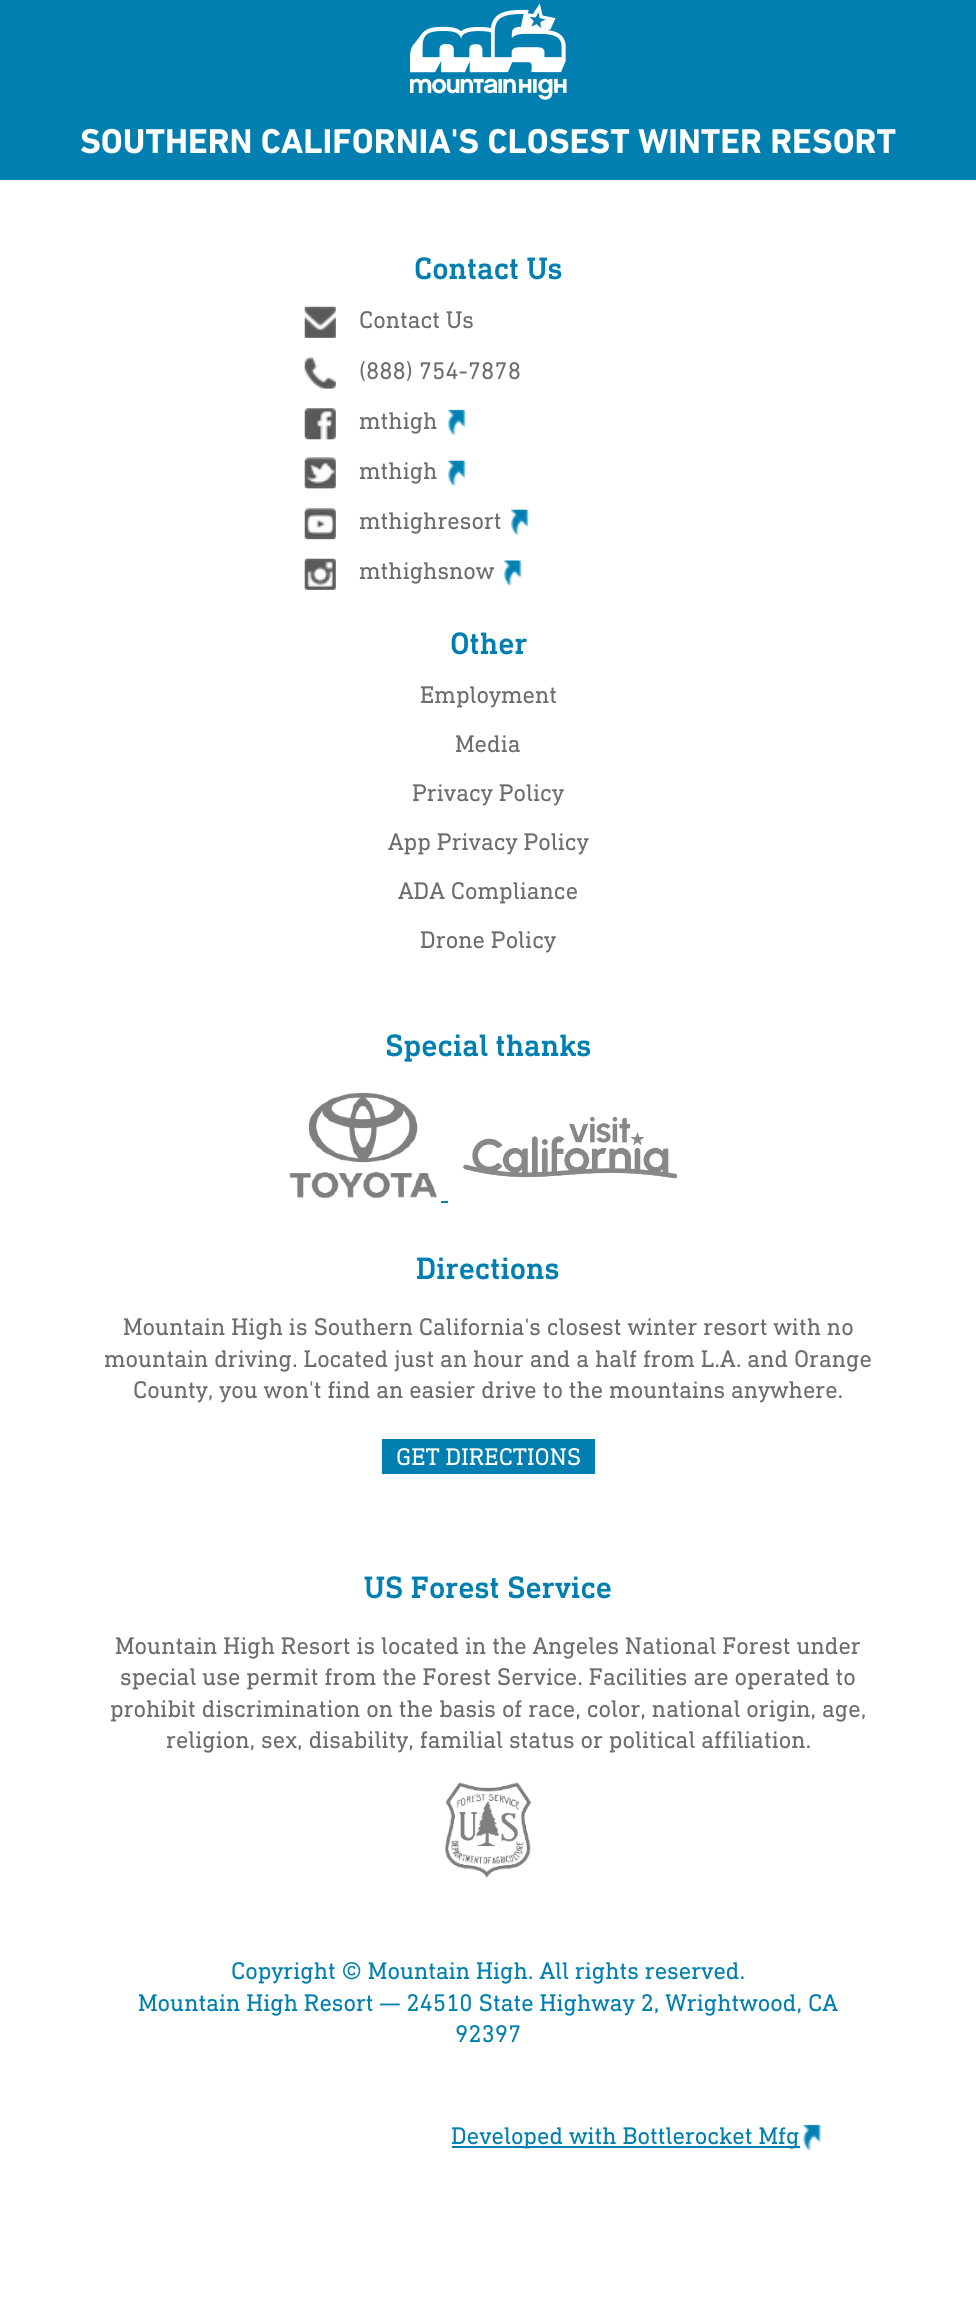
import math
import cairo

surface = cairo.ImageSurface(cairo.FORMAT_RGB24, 976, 2309)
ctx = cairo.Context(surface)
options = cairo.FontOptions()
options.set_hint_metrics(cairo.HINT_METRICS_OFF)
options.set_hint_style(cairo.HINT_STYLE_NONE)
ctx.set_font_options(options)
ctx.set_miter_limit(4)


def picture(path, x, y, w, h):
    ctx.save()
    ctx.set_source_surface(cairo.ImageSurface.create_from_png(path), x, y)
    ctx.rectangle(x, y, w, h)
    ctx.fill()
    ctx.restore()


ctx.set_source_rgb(1, 1, 1)
ctx.paint()
ctx.set_source_rgb(0, 0.498, 0.69)
ctx.rectangle(0, 0, 976, 180)
ctx.fill()
picture("img1.png", 410, 4, 157, 96)
ctx.select_font_face("DIN Next", cairo.FONT_SLANT_NORMAL, cairo.FONT_WEIGHT_BOLD)
ctx.set_font_size(35)
ctx.set_source_rgb(1, 1, 1)
ctx.move_to(80, 153)
ctx.show_text("SOUTHERN CALIFORNIA'S CLOSEST WINTER RESORT")
ctx.select_font_face("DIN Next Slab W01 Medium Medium")
ctx.set_font_size(31.5)
ctx.set_source_rgb(0, 0.498, 0.69)
ctx.move_to(414, 279)
ctx.show_text("Contact Us")
picture("img2.png", 304, 306, 32, 32)
ctx.select_font_face("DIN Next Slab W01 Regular")
ctx.set_font_size(24.5)
ctx.set_source_rgb(0.427, 0.427, 0.439)
ctx.move_to(359, 328)
ctx.show_text("Contact Us")
picture("img3.png", 304, 357, 32, 32)
ctx.move_to(359, 379)
ctx.show_text("(888) 754-7878")
picture("img4.png", 304, 408, 32, 32)
ctx.move_to(359, 429)
ctx.show_text("mthigh")
picture("img5.png", 448, 409, 18, 27)
picture("img6.png", 304, 457, 32, 32)
ctx.move_to(359, 479)
ctx.show_text("mthigh")
picture("img7.png", 448, 460, 18, 27)
picture("img8.png", 304, 507, 32, 33)
ctx.move_to(359, 529)
ctx.show_text("mthighresort")
picture("img7.png", 511, 509, 18, 27)
picture("img9.png", 304, 558, 32, 32)
ctx.move_to(359, 579)
ctx.show_text("mthighsnow")
picture("img10.png", 504, 560, 18, 26)
ctx.select_font_face("DIN Next Slab W01 Medium Medium")
ctx.set_font_size(31.5)
ctx.set_source_rgb(0, 0.498, 0.69)
ctx.move_to(450, 654)
ctx.show_text("Other")
ctx.select_font_face("DIN Next Slab W01 Regular")
ctx.set_font_size(24.5)
ctx.set_source_rgb(0.427, 0.427, 0.439)
ctx.move_to(420, 703)
ctx.show_text("Employment")
ctx.move_to(455, 752)
ctx.show_text("Media")
ctx.move_to(412, 801)
ctx.show_text("Privacy Policy")
ctx.move_to(388, 850)
ctx.show_text("App Privacy Policy")
ctx.move_to(398, 899)
ctx.show_text("ADA Compliance")
ctx.move_to(420, 948)
ctx.show_text("Drone Policy")
ctx.select_font_face("DIN Next Slab W01 Medium Medium")
ctx.set_font_size(31.5)
ctx.set_source_rgb(0, 0.498, 0.69)
ctx.move_to(385, 1056)
ctx.show_text("Special thanks")
picture("img11.png", 289, 1092, 149, 107)
picture("img12.png", 463, 1116, 215, 63)
ctx.rectangle(441, 1201, 7, 2)
ctx.fill()
ctx.move_to(416, 1279)
ctx.show_text("Directions")
ctx.select_font_face("DIN Next Slab W01 Regular")
ctx.set_font_size(24.5)
ctx.set_source_rgb(0.427, 0.427, 0.439)
ctx.move_to(123, 1335)
ctx.show_text("Mountain High is Southern California's closest winter resort with no")
ctx.move_to(104, 1367)
ctx.show_text("mountain driving. Located just an hour and a half from L.A. and Orange")
ctx.move_to(133, 1398)
ctx.show_text("County, you won't find an easier drive to the mountains anywhere.")
ctx.set_source_rgb(0, 0.498, 0.69)
ctx.rectangle(382, 1439, 213, 35)
ctx.fill()
ctx.set_source_rgb(1, 1, 1)
ctx.move_to(396, 1465)
ctx.show_text("GET DIRECTIONS")
ctx.select_font_face("DIN Next Slab W01 Medium Medium")
ctx.set_font_size(31.5)
ctx.set_source_rgb(0, 0.498, 0.69)
ctx.move_to(364, 1598)
ctx.show_text("US Forest Service")
ctx.select_font_face("DIN Next Slab W01 Regular")
ctx.set_font_size(24.5)
ctx.set_source_rgb(0.427, 0.427, 0.439)
ctx.move_to(115, 1654)
ctx.show_text("Mountain High Resort is located in the Angeles National Forest under")
ctx.move_to(120, 1685)
ctx.show_text("special use permit from the Forest Service. Facilities are operated to")
ctx.move_to(110, 1717)
ctx.show_text("prohibit discrimination on the basis of race, color, national origin, age,")
ctx.move_to(166, 1748)
ctx.show_text("religion, sex, disability, familial status or political affiliation.")
picture("img13.png", 445, 1782, 87, 96)
ctx.set_source_rgb(0, 0.498, 0.69)
ctx.move_to(231, 1979)
ctx.show_text("Copyright © Mountain High. All rights reserved.")
ctx.move_to(138, 2011)
ctx.show_text("Mountain High Resort — 24510 State Highway 2, Wrightwood, CA")
ctx.move_to(455, 2042)
ctx.show_text("92397")
ctx.rectangle(452, 2146, 348, 2)
ctx.fill()
ctx.move_to(451, 2144)
ctx.show_text("Developed with Bottlerocket Mfg")
picture("img14.png", 803, 2124, 18, 27)
surface.write_to_png("page.png")
